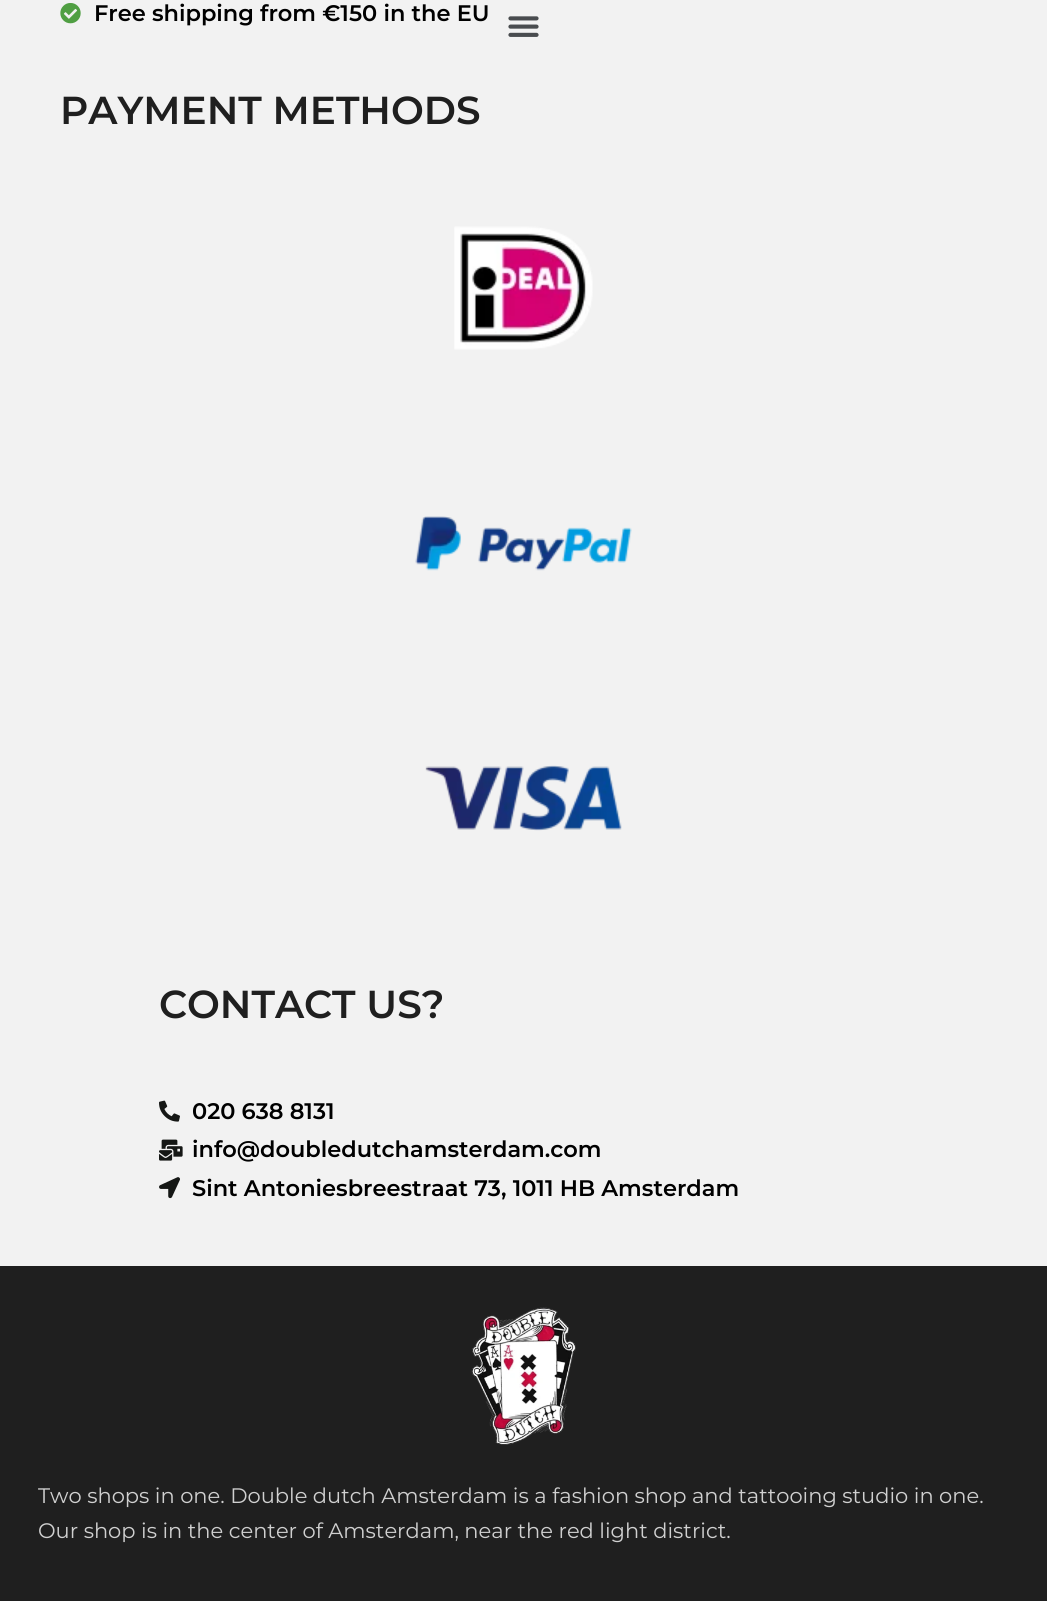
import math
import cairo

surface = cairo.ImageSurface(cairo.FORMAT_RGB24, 1047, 1601)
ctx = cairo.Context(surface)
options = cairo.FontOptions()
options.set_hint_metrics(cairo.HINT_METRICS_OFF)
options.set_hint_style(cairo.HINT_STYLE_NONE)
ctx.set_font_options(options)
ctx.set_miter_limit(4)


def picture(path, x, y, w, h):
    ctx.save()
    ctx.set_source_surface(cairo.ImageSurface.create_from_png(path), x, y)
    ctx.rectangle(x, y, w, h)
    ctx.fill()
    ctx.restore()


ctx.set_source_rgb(0.949, 0.949, 0.949)
ctx.paint()
picture("img1.png", 60, 3, 21, 21)
ctx.select_font_face("Montserrat SemiBold")
ctx.set_font_size(22.5)
ctx.set_source_rgb(0, 0, 0)
ctx.move_to(94, 21)
ctx.show_text("Free shipping from €150 in the EU")
ctx.set_font_size(39)
ctx.set_source_rgb(0.122, 0.122, 0.122)
ctx.move_to(60, 124)
ctx.show_text("PAYMENT METHODS")
picture("img2.png", 454, 226, 139, 124)
picture("img3.png", 415, 516, 217, 55)
picture("img4.png", 425, 765, 197, 66)
ctx.move_to(159, 1018)
ctx.show_text("CONTACT US?")
picture("img5.png", 159, 1100, 21, 22)
ctx.set_font_size(22.5)
ctx.set_source_rgb(0, 0, 0)
ctx.move_to(192, 1119)
ctx.show_text("020 638 8131")
picture("img6.png", 159, 1139, 24, 22)
ctx.move_to(192, 1157)
ctx.show_text("info@doubledutchamsterdam.com")
picture("img7.png", 159, 1177, 21, 22)
ctx.move_to(192, 1196)
ctx.show_text("Sint Antoniesbreestraat 73, 1011 HB Amsterdam")
ctx.set_source_rgb(0.122, 0.122, 0.122)
ctx.rectangle(0, 1266, 1047, 335)
ctx.fill()
picture("img8.png", 471, 1307, 105, 138)
ctx.select_font_face("Montserrat")
ctx.set_font_size(21)
ctx.set_source_rgb(0.816, 0.816, 0.816)
ctx.move_to(38, 1503)
ctx.show_text("Two shops in one. Double dutch Amsterdam is a fashion shop and tattooing studio in one.")
ctx.move_to(38, 1538)
ctx.show_text("Our shop is in the center of Amsterdam, near the red light district.")
picture("img9.png", 508, 16, 31, 21)
surface.write_to_png("page.png")
